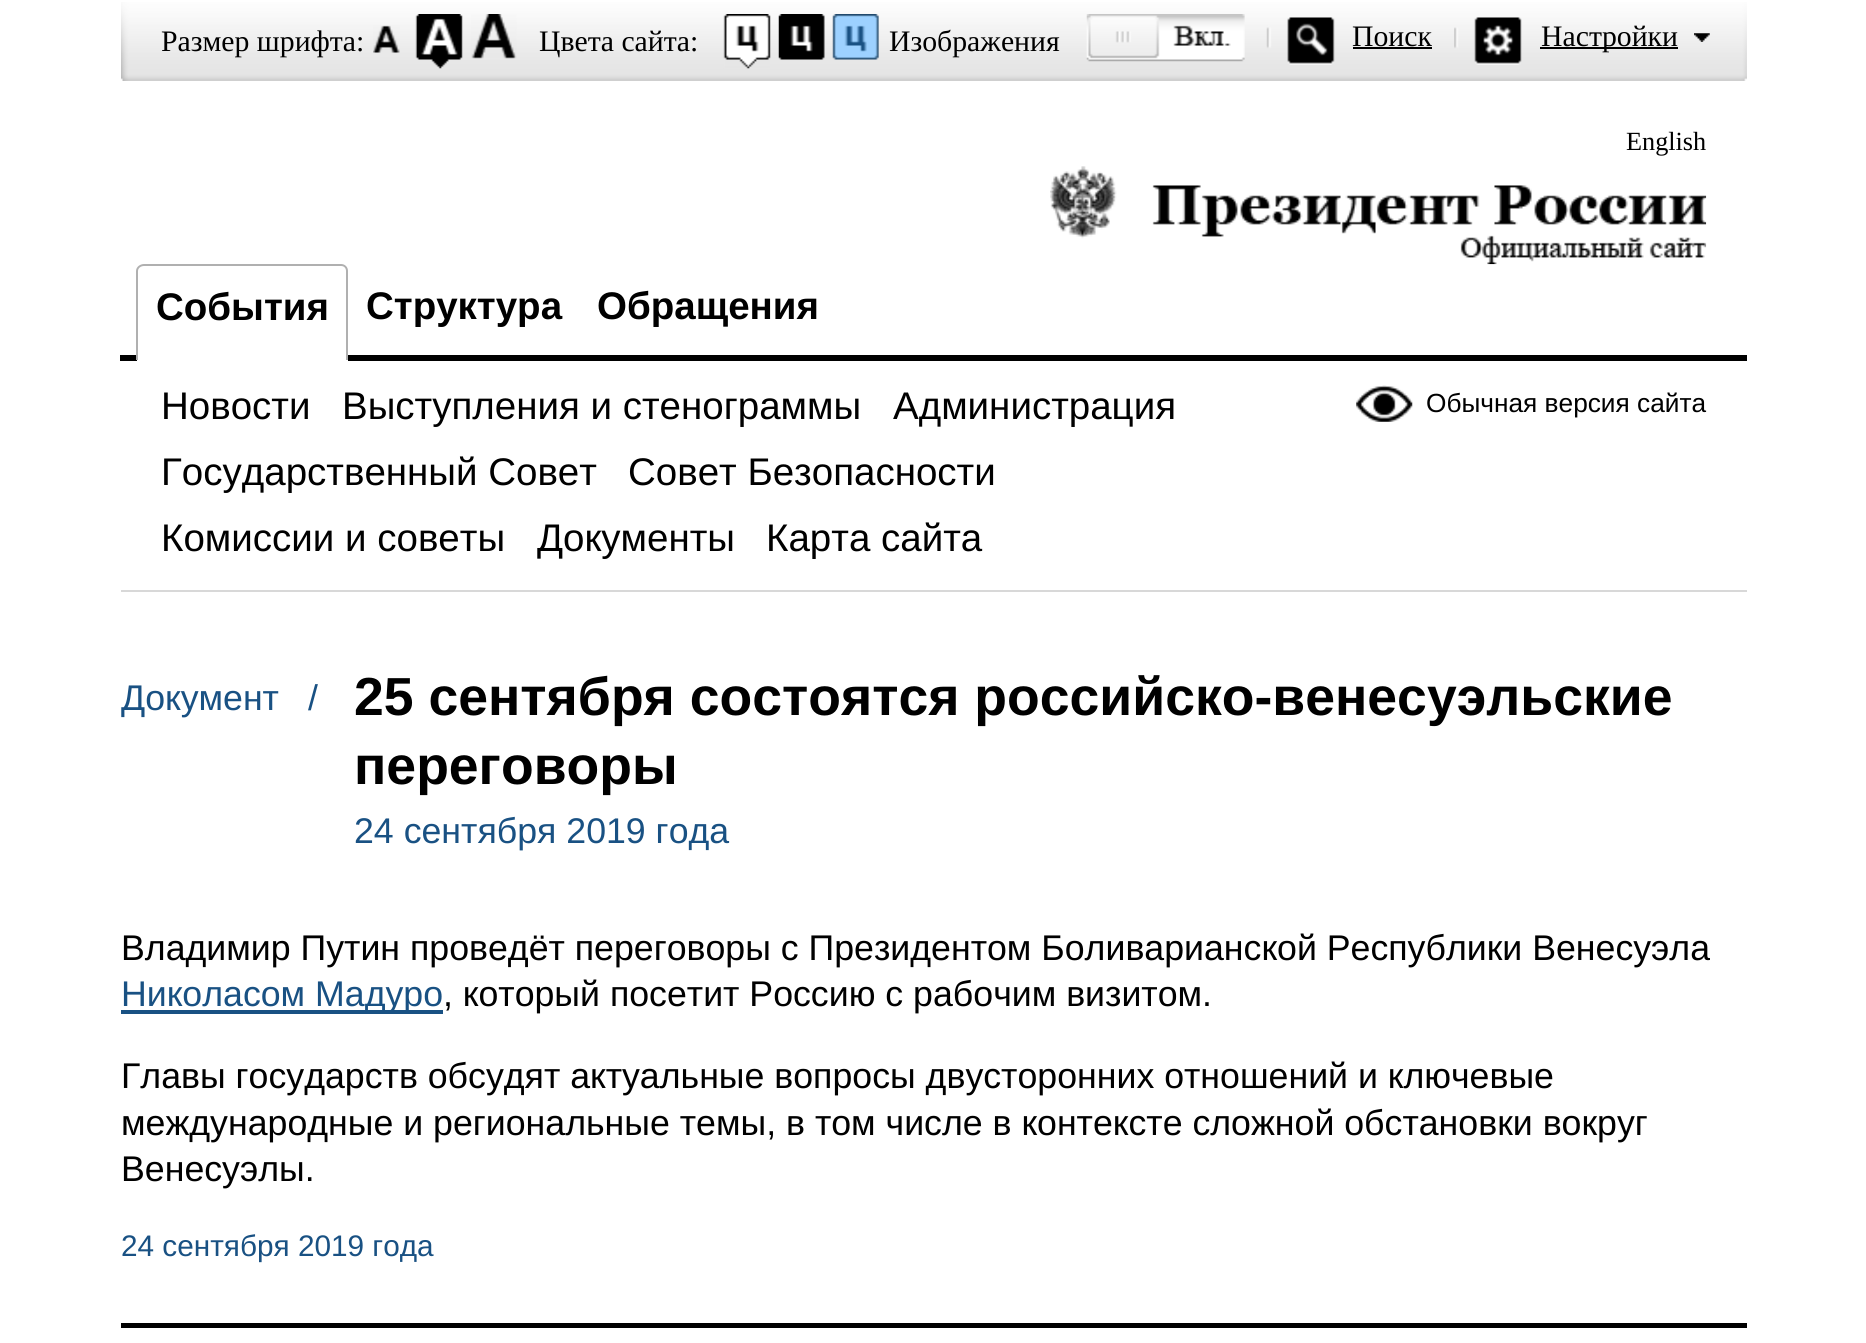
import math
import cairo

surface = cairo.ImageSurface(cairo.FORMAT_RGB24, 1866, 1343)
ctx = cairo.Context(surface)
options = cairo.FontOptions()
options.set_hint_metrics(cairo.HINT_METRICS_OFF)
options.set_hint_style(cairo.HINT_STYLE_NONE)
ctx.set_font_options(options)
ctx.set_miter_limit(4)


def picture(path, x, y, w, h):
    ctx.save()
    ctx.set_source_surface(cairo.ImageSurface.create_from_png(path), x, y)
    ctx.rectangle(x, y, w, h)
    ctx.fill()
    ctx.restore()


ctx.set_source_rgb(1, 1, 1)
ctx.paint()
picture("img1.png", 121, 2, 1626, 79)
ctx.select_font_face("Liberation Serif")
ctx.set_font_size(29.75)
ctx.set_source_rgb(0, 0, 0)
ctx.move_to(161, 51)
ctx.show_text("Размер шрифта:")
picture("img2.png", 373, 25, 27, 28)
picture("img3.png", 415, 14, 48, 55)
picture("img4.png", 471, 14, 46, 45)
ctx.move_to(539, 51)
ctx.show_text("Цвета сайта:")
picture("img5.png", 723, 14, 48, 55)
picture("img6.png", 778, 14, 47, 46)
picture("img7.png", 832, 14, 47, 46)
ctx.move_to(889, 51)
ctx.show_text("Изображения")
picture("img8.png", 1086, 14, 159, 48)
picture("img9.png", 1266, 17, 69, 48)
ctx.move_to(1352, 46)
ctx.show_text("Поиск")
ctx.rectangle(1353, 47, 79, 2)
ctx.fill()
picture("img10.png", 1454, 17, 68, 48)
ctx.rectangle(1540, 47, 138, 2)
ctx.fill()
ctx.move_to(1541, 46)
ctx.show_text("Настройки")
picture("img11.png", 1694, 33, 16, 9)
ctx.set_font_size(26.25)
ctx.move_to(1626, 150)
ctx.show_text("English")
picture("img12.png", 1050, 166, 657, 99)
ctx.set_source_rgb(0.847, 0.847, 0.847)
ctx.rectangle(121, 590, 1626, 2)
ctx.fill()
ctx.set_source_rgb(0, 0, 0)
ctx.rectangle(120, 355, 1627, 6)
ctx.fill()
ctx.set_source_rgb(1, 1, 1)
ctx.new_path()
ctx.move_to(144, 264)
ctx.line_to(341, 264)
ctx.curve_to(345, 264, 348, 267, 348, 271)
ctx.line_to(348, 361)
ctx.line_to(137, 361)
ctx.line_to(137, 271)
ctx.curve_to(137, 267, 140, 264, 144, 264)
ctx.close_path()
ctx.fill()
ctx.set_source_rgb(0.69, 0.69, 0.69)
ctx.set_fill_rule(cairo.FILL_RULE_EVEN_ODD)
ctx.new_path()
ctx.move_to(144, 264)
ctx.line_to(341, 264)
ctx.curve_to(345, 264, 348, 267, 348, 271)
ctx.line_to(348, 360)
ctx.line_to(136, 360)
ctx.line_to(136, 271)
ctx.curve_to(136, 267, 140, 264, 144, 264)
ctx.close_path()
ctx.move_to(144, 266)
ctx.line_to(341, 266)
ctx.curve_to(344, 266, 346, 268, 346, 271)
ctx.line_to(346, 360)
ctx.line_to(138, 360)
ctx.line_to(138, 271)
ctx.curve_to(138, 268, 141, 266, 144, 266)
ctx.close_path()
ctx.fill()
ctx.select_font_face("Liberation Sans", cairo.FONT_SLANT_NORMAL, cairo.FONT_WEIGHT_BOLD)
ctx.set_font_size(38.5)
ctx.set_source_rgb(0, 0, 0)
ctx.move_to(156, 320)
ctx.show_text("События")
ctx.move_to(366, 319)
ctx.show_text("Структура")
ctx.move_to(597, 319)
ctx.show_text("Обращения")
ctx.select_font_face("Liberation Sans")
ctx.move_to(161, 419)
ctx.show_text("Новости")
ctx.move_to(342, 419)
ctx.show_text("Выступления и стенограммы")
ctx.move_to(893, 419)
ctx.show_text("Администрация")
ctx.move_to(161, 485)
ctx.show_text("Государственный Совет")
ctx.move_to(628, 485)
ctx.show_text("Совет Безопасности")
ctx.move_to(161, 551)
ctx.show_text("Комиссии и советы")
ctx.move_to(537, 551)
ctx.show_text("Документы")
ctx.move_to(766, 551)
ctx.show_text("Карта сайта")
picture("img13.png", 1356, 385, 57, 37)
ctx.set_font_size(26.25)
ctx.move_to(1426, 412)
ctx.show_text("Обычная версия сайта")
ctx.set_font_size(35.7)
ctx.set_source_rgb(0.098, 0.318, 0.514)
ctx.move_to(121, 710)
ctx.show_text("Документ")
ctx.move_to(308, 710)
ctx.show_text("/")
ctx.select_font_face("Liberation Sans", cairo.FONT_SLANT_NORMAL, cairo.FONT_WEIGHT_BOLD)
ctx.set_font_size(53.55)
ctx.set_source_rgb(0, 0, 0)
ctx.move_to(354, 715)
ctx.show_text("25 сентября состоятся российско-венесуэльские")
ctx.move_to(354, 784)
ctx.show_text("переговоры")
ctx.select_font_face("Liberation Sans")
ctx.set_font_size(35.7)
ctx.set_source_rgb(0.098, 0.318, 0.514)
ctx.move_to(354, 843)
ctx.show_text("24 сентября 2019 года")
ctx.set_source_rgb(0, 0, 0)
ctx.move_to(121, 960)
ctx.show_text("Владимир Путин проведёт переговоры с Президентом Боливарианской Республики Венесуэла")
ctx.set_source_rgb(0.098, 0.318, 0.514)
ctx.rectangle(121, 1010, 322, 4)
ctx.fill()
ctx.move_to(121, 1006)
ctx.show_text("Николасом Мадуро")
ctx.set_source_rgb(0, 0, 0)
ctx.move_to(443, 1006)
ctx.show_text(", который посетит Россию с рабочим визитом.")
ctx.move_to(121, 1088)
ctx.show_text("Главы государств обсудят актуальные вопросы двусторонних отношений и ключевые")
ctx.move_to(121, 1135)
ctx.show_text("международные и региональные темы, в том числе в контексте сложной обстановки вокруг")
ctx.move_to(121, 1181)
ctx.show_text("Венесуэлы.")
ctx.set_font_size(29.75)
ctx.set_source_rgb(0.098, 0.318, 0.514)
ctx.move_to(121, 1256)
ctx.show_text("24 сентября 2019 года")
ctx.set_source_rgb(0, 0, 0)
ctx.rectangle(121, 1323, 1626, 5)
ctx.fill()
surface.write_to_png("page.png")
